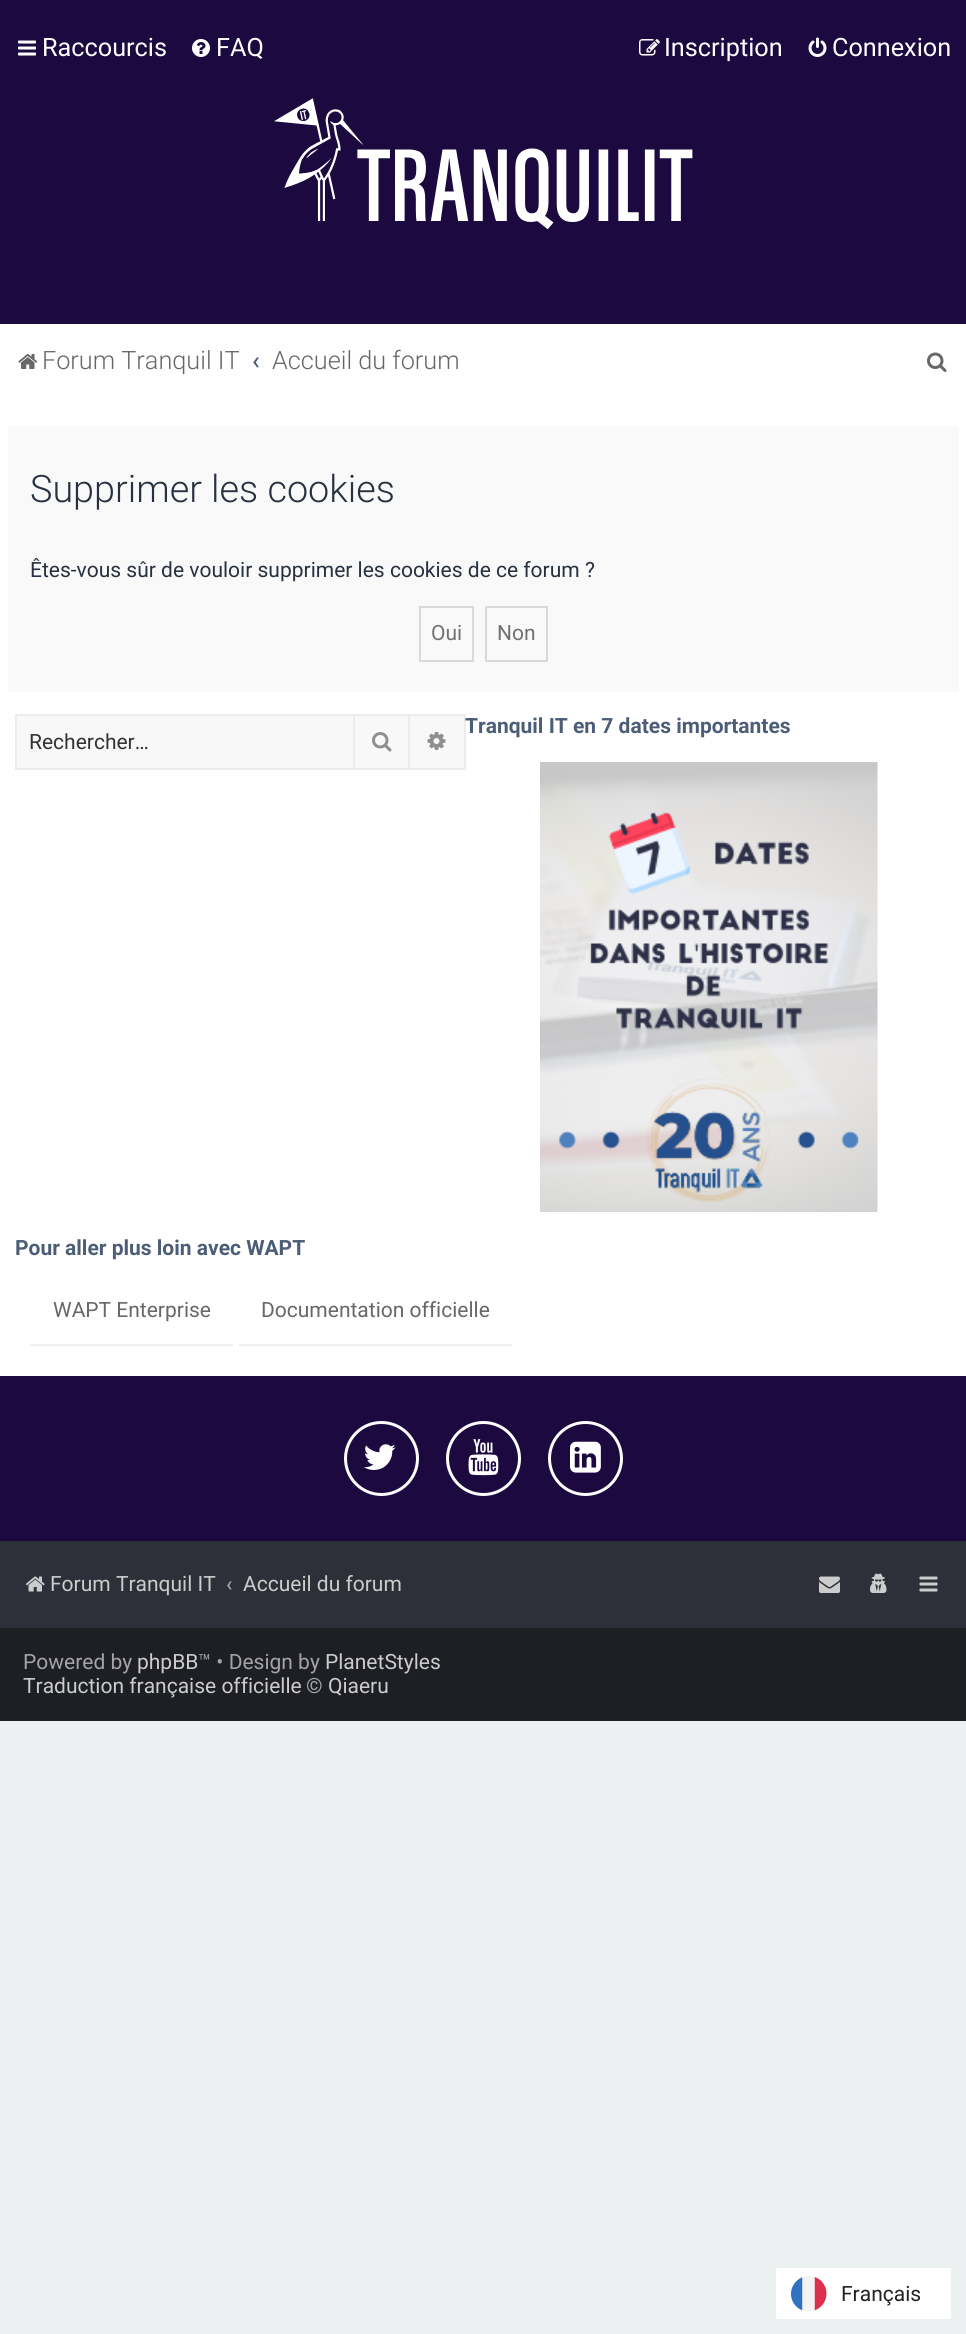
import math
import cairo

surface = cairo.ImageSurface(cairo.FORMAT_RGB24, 966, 2334)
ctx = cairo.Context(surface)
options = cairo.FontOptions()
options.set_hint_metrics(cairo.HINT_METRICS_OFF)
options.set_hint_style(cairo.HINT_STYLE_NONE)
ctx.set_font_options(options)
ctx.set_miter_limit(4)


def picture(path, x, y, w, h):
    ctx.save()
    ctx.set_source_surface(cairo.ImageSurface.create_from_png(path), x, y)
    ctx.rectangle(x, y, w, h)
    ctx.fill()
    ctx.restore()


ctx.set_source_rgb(0.925, 0.941, 0.945)
ctx.paint()
ctx.set_source_rgb(0.106, 0.039, 0.251)
ctx.rectangle(0, 0, 966, 324)
ctx.fill()
picture("img1.png", 274, 98, 419, 132)
picture("img2.png", 18, 40, 18, 16)
ctx.select_font_face("Roboto")
ctx.set_font_size(25.25)
ctx.set_source_rgb(1, 1, 1)
ctx.move_to(42, 56)
ctx.show_text("Raccourcis")
picture("img3.png", 192, 39, 18, 18)
ctx.move_to(216, 56)
ctx.show_text("FAQ")
picture("img4.png", 639, 39, 21, 17)
ctx.move_to(664, 56)
ctx.show_text("Inscription")
picture("img5.png", 808, 37, 19, 20)
ctx.move_to(832, 56)
ctx.show_text("Connexion")
ctx.rectangle(0, 324, 966, 1052)
ctx.fill()
picture("img6.png", 18, 354, 20, 15)
ctx.select_font_face("Roboto Light")
ctx.set_source_rgb(0.404, 0.404, 0.404)
ctx.move_to(42, 369)
ctx.show_text("Forum Tranquil IT")
ctx.select_font_face("Roboto Medium")
ctx.set_source_rgb(0.298, 0.365, 0.467)
ctx.move_to(252, 369)
ctx.show_text("‹")
ctx.select_font_face("Roboto Light")
ctx.set_source_rgb(0.404, 0.404, 0.404)
ctx.move_to(272, 369)
ctx.show_text("Accueil du forum")
picture("img7.png", 927, 352, 20, 20)
ctx.set_source_rgb(0.976, 0.976, 0.976)
ctx.rectangle(8, 426, 951, 266)
ctx.fill()
ctx.set_font_size(37.75)
ctx.set_source_rgb(0.157, 0.192, 0.247)
ctx.move_to(30, 502)
ctx.show_text("Supprimer les cookies")
ctx.select_font_face("Roboto")
ctx.set_font_size(21)
ctx.move_to(30, 577)
ctx.show_text("Êtes-vous sûr de vouloir supprimer les cookies de ce forum ?")
ctx.rectangle(420, 607, 53, 54)
ctx.set_source_rgb(0.851, 0.851, 0.851)
ctx.stroke()
ctx.set_source_rgb(0.443, 0.443, 0.443)
ctx.move_to(431, 640)
ctx.show_text("Oui")
ctx.rectangle(486, 607, 61, 54)
ctx.set_source_rgb(0.851, 0.851, 0.851)
ctx.stroke()
ctx.set_source_rgb(0.443, 0.443, 0.443)
ctx.move_to(497, 640)
ctx.show_text("Non")
ctx.set_source_rgb(0.929, 0.925, 0.925)
ctx.rectangle(410, 714, 55, 2)
ctx.fill()
ctx.rectangle(464, 714, 2, 56)
ctx.fill()
ctx.select_font_face("Roboto", cairo.FONT_SLANT_NORMAL, cairo.FONT_WEIGHT_BOLD)
ctx.set_source_rgb(0.298, 0.365, 0.467)
ctx.move_to(465, 733)
ctx.show_text("Tranquil IT en 7 dates importantes")
picture("img8.png", 540, 762, 338, 450)
ctx.set_source_rgb(0.969, 0.969, 0.969)
ctx.rectangle(17, 716, 336, 52)
ctx.fill()
ctx.set_source_rgb(0.929, 0.925, 0.925)
ctx.rectangle(15, 714, 338, 2)
ctx.fill()
ctx.rectangle(15, 768, 338, 2)
ctx.fill()
ctx.rectangle(15, 714, 2, 56)
ctx.fill()
ctx.select_font_face("Roboto")
ctx.set_source_rgb(0.2, 0.2, 0.2)
ctx.move_to(29, 749)
ctx.show_text("Rechercher…")
ctx.set_source_rgb(0.969, 0.969, 0.969)
ctx.rectangle(354, 715, 55, 54)
ctx.fill_preserve()
ctx.set_source_rgb(0.929, 0.925, 0.925)
ctx.stroke()
picture("img9.png", 372, 732, 20, 20)
ctx.set_source_rgb(0.969, 0.969, 0.969)
ctx.rectangle(410, 716, 54, 52)
ctx.fill()
ctx.set_source_rgb(0.929, 0.925, 0.925)
ctx.rectangle(410, 768, 55, 2)
ctx.fill()
picture("img10.png", 427, 732, 19, 18)
ctx.select_font_face("Roboto", cairo.FONT_SLANT_NORMAL, cairo.FONT_WEIGHT_BOLD)
ctx.set_source_rgb(0.298, 0.365, 0.467)
ctx.move_to(15, 1255)
ctx.show_text("Pour aller plus loin avec WAPT")
ctx.set_source_rgb(0.925, 0.941, 0.945)
ctx.rectangle(30, 1344, 203, 2)
ctx.fill()
ctx.select_font_face("Roboto")
ctx.set_source_rgb(0.404, 0.404, 0.404)
ctx.move_to(53, 1317)
ctx.show_text("WAPT Enterprise")
ctx.set_source_rgb(0.925, 0.941, 0.945)
ctx.rectangle(239, 1344, 273, 2)
ctx.fill()
ctx.set_source_rgb(0.404, 0.404, 0.404)
ctx.move_to(261, 1317)
ctx.show_text("Documentation officielle")
ctx.set_source_rgb(0.106, 0.039, 0.251)
ctx.rectangle(0, 1376, 966, 165)
ctx.fill()
ctx.arc(381.5, 1458.5, 36, 0, 2 * math.pi)
ctx.set_source_rgb(1, 1, 1)
ctx.set_line_width(3)
ctx.stroke()
picture("img11.png", 364, 1444, 32, 26)
ctx.arc(483.5, 1458.5, 36, 0, 2 * math.pi)
ctx.stroke()
picture("img12.png", 468, 1439, 31, 37)
ctx.arc(585.5, 1458.5, 36, 0, 2 * math.pi)
ctx.stroke()
picture("img13.png", 570, 1441, 31, 32)
ctx.set_source_rgb(0.176, 0.188, 0.224)
ctx.rectangle(0, 1541, 966, 87)
ctx.fill()
picture("img14.png", 25, 1576, 20, 16)
ctx.set_source_rgb(0.8, 0.8, 0.8)
ctx.move_to(50, 1591)
ctx.show_text("Forum Tranquil IT")
ctx.select_font_face("Roboto Medium")
ctx.set_source_rgb(0.643, 0.643, 0.655)
ctx.move_to(226, 1591)
ctx.show_text("‹")
ctx.select_font_face("Roboto")
ctx.set_source_rgb(0.8, 0.8, 0.8)
ctx.move_to(243, 1591)
ctx.show_text("Accueil du forum")
picture("img15.png", 819, 1576, 21, 17)
picture("img16.png", 870, 1573, 17, 20)
picture("img17.png", 919, 1576, 19, 16)
ctx.set_source_rgb(0.114, 0.122, 0.145)
ctx.rectangle(0, 1628, 966, 93)
ctx.fill()
ctx.set_source_rgb(0.643, 0.643, 0.655)
ctx.move_to(23, 1669)
ctx.show_text("Powered by")
ctx.set_source_rgb(0.8, 0.8, 0.8)
ctx.move_to(137, 1669)
ctx.show_text("phpBB")
ctx.set_source_rgb(0.643, 0.643, 0.655)
ctx.move_to(198, 1669)
ctx.show_text("™ • Design by")
ctx.set_source_rgb(0.8, 0.8, 0.8)
ctx.move_to(325, 1669)
ctx.show_text("PlanetStyles")
ctx.move_to(23, 1693)
ctx.show_text("Traduction française officielle")
ctx.set_source_rgb(0.643, 0.643, 0.655)
ctx.move_to(306, 1693)
ctx.show_text("©")
ctx.set_source_rgb(0.8, 0.8, 0.8)
ctx.move_to(328, 1693)
ctx.show_text("Qiaeru")
ctx.set_source_rgb(1, 1, 1)
ctx.rectangle(776, 2268, 175, 51)
ctx.fill()
picture("img18.png", 791, 2276, 36, 36)
ctx.set_source_rgb(0.133, 0.133, 0.133)
ctx.move_to(841, 2301)
ctx.show_text("Français")
surface.write_to_png("page.png")
